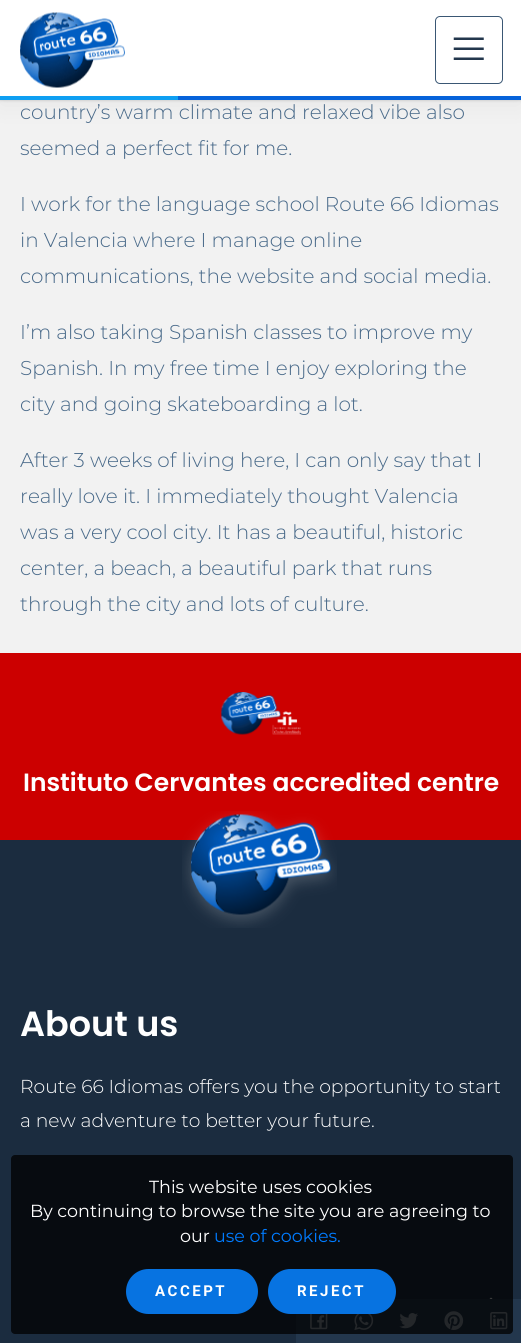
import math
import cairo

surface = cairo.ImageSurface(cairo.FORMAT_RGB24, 521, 1343)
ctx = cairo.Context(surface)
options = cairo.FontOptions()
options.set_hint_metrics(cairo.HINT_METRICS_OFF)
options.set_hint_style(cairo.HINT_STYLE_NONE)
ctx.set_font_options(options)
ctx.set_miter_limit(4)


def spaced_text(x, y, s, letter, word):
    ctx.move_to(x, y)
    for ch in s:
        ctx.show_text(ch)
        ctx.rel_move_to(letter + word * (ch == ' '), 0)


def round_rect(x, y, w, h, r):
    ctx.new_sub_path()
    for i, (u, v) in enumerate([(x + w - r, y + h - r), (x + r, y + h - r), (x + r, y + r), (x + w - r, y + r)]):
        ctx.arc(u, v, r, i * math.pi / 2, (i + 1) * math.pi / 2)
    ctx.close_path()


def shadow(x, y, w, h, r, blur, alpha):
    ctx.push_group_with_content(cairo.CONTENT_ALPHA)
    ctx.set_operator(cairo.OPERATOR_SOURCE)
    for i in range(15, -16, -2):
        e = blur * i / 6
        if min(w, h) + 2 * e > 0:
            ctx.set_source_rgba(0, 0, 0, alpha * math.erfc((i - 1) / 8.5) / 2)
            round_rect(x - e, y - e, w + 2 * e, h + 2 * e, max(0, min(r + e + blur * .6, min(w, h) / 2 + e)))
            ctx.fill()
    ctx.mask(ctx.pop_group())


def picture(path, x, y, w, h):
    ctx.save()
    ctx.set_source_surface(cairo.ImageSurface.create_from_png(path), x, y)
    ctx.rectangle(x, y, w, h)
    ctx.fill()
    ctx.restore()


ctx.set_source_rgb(0.949, 0.949, 0.949)
ctx.paint()
ctx.set_source_rgb(0, 0, 0)
shadow(0, 5, 521, 100, 0, 12.5, 0.05)
shadow(0, 1, 521, 100, 0, 1, 0.1)
ctx.set_source_rgb(1, 1, 1)
ctx.rectangle(0, 0, 521, 96)
ctx.fill()
picture("img1.png", 20, 12, 105, 76)
round_rect(435.5, 16.5, 67, 67, 4.5)
ctx.set_source_rgb(0.227, 0.341, 0.455)
ctx.set_line_width(1)
ctx.stroke()
picture("img2.png", 453, 37, 31, 23)
ctx.set_source_rgb(0.024, 0.388, 0.855)
ctx.rectangle(178, 96, 343, 4)
ctx.fill()
ctx.set_source_rgb(0.055, 0.624, 0.949)
ctx.rectangle(0, 96, 178, 4)
ctx.fill()
ctx.select_font_face("Montserrat Light")
ctx.set_font_size(20)
ctx.set_source_rgb(0.282, 0.412, 0.537)
ctx.move_to(20, 119)
ctx.show_text("country’s warm climate and relaxed vibe also")
ctx.move_to(20, 155)
ctx.show_text("seemed a perfect fit for me.")
ctx.move_to(20, 211)
ctx.show_text("I work for the language school Route 66 Idiomas")
ctx.move_to(20, 247)
ctx.show_text("in Valencia where I manage online")
ctx.move_to(20, 283)
ctx.show_text("communications, the website and social media.")
ctx.move_to(20, 339)
ctx.show_text("I’m also taking Spanish classes to improve my")
ctx.move_to(20, 375)
ctx.show_text("Spanish. In my free time I enjoy exploring the")
ctx.move_to(20, 411)
ctx.show_text("city and going skateboarding a lot.")
ctx.move_to(20, 467)
ctx.show_text("After 3 weeks of living here, I can only say that I")
ctx.move_to(20, 503)
ctx.show_text("really love it. I immediately thought Valencia")
ctx.move_to(20, 539)
ctx.show_text("was a very cool city. It has a beautiful, historic")
ctx.move_to(20, 575)
ctx.show_text("center, a beach, a beautiful park that runs")
ctx.move_to(20, 611)
ctx.show_text("through the city and lots of culture.")
ctx.set_source_rgb(0.106, 0.173, 0.247)
ctx.rectangle(0, 840, 521, 503)
ctx.fill()
ctx.set_source_rgb(0.8, 0, 0)
ctx.rectangle(0, 653, 521, 187)
ctx.fill()
picture("img3.png", 220, 692, 81, 43)
ctx.select_font_face("Poppins SemiBold")
ctx.set_font_size(25)
ctx.set_source_rgb(1, 1, 1)
ctx.move_to(23, 791)
ctx.show_text("Instituto Cervantes accredited centre")
picture("img4.png", 182, 811, 155, 117)
ctx.set_font_size(35)
ctx.move_to(20, 1036)
ctx.show_text("About us")
ctx.select_font_face("Montserrat Light")
ctx.set_font_size(18.75)
ctx.move_to(20, 1093)
ctx.show_text("Route 66 Idiomas offers you the opportunity to start")
ctx.move_to(20, 1127)
ctx.show_text("a new adventure to better your future.")
ctx.new_path()
ctx.move_to(491, 1297.5)
ctx.line_to(503, 1309)
ctx.line_to(501, 1311)
ctx.line_to(492.5, 1302.5)
ctx.line_to(492.5, 1327.5)
ctx.line_to(490, 1327.5)
ctx.line_to(490, 1302.5)
ctx.line_to(481.5, 1311)
ctx.line_to(479.5, 1309)
ctx.close_path()
ctx.fill()
ctx.set_source_rgb(0.137, 0.216, 0.302)
ctx.rectangle(296, 1299, 225, 44)
ctx.fill()
picture("img5.png", 310, 1314, 18, 16)
picture("img6.png", 354, 1314, 20, 16)
picture("img7.png", 399, 1313, 19, 16)
picture("img8.png", 444, 1311, 20, 19)
picture("img9.png", 490, 1312, 18, 18)
ctx.set_source_rgba(0, 0, 0, 0.75)
round_rect(11, 1155, 502, 179, 4)
ctx.fill()
ctx.select_font_face("Montserrat")
ctx.set_font_size(17.5)
ctx.set_source_rgb(1, 1, 1)
ctx.move_to(149, 1193)
ctx.show_text("This website uses cookies")
ctx.move_to(30, 1217)
ctx.show_text("By continuing to browse the site you are agreeing to")
ctx.move_to(180, 1242)
ctx.show_text("our")
ctx.set_source_rgb(0, 0.482, 1)
ctx.move_to(214, 1242)
ctx.show_text("use of cookies.")
ctx.set_source_rgb(0.031, 0.451, 0.882)
round_rect(126, 1269, 132, 45, 22.5)
ctx.fill()
ctx.select_font_face("Roboto", cairo.FONT_SLANT_NORMAL, cairo.FONT_WEIGHT_BOLD)
ctx.set_font_size(15)
ctx.set_source_rgb(1, 1, 1)
spaced_text(155, 1296, "ACCEPT", 2.5, 0)
ctx.set_source_rgb(0.031, 0.451, 0.882)
round_rect(268, 1269, 128, 45, 22.5)
ctx.fill()
ctx.set_source_rgb(1, 1, 1)
spaced_text(297, 1296, "REJECT", 2.5, 0)
surface.write_to_png("page.png")
